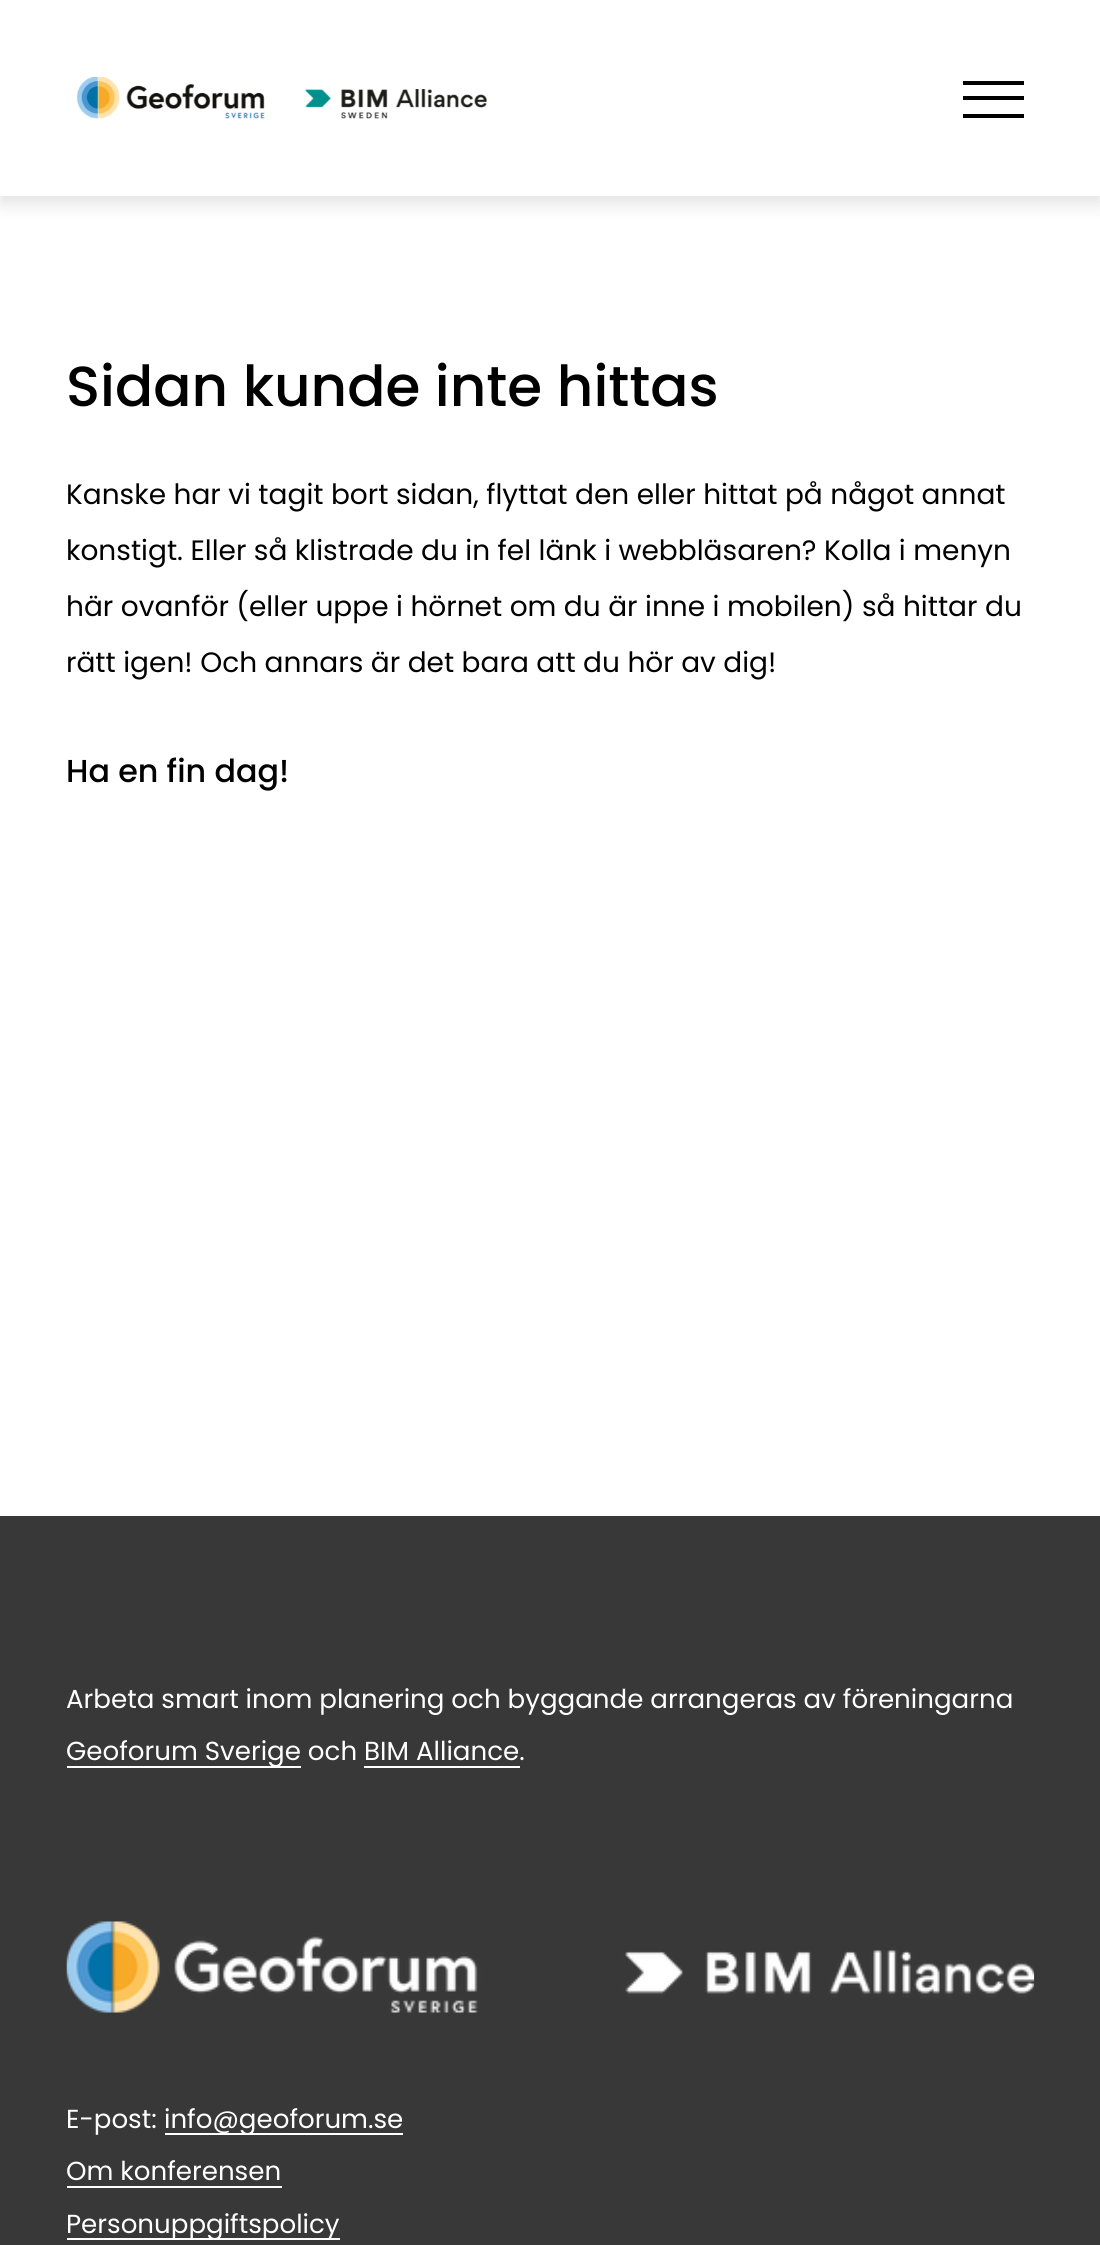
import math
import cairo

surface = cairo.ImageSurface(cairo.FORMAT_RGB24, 1100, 2245)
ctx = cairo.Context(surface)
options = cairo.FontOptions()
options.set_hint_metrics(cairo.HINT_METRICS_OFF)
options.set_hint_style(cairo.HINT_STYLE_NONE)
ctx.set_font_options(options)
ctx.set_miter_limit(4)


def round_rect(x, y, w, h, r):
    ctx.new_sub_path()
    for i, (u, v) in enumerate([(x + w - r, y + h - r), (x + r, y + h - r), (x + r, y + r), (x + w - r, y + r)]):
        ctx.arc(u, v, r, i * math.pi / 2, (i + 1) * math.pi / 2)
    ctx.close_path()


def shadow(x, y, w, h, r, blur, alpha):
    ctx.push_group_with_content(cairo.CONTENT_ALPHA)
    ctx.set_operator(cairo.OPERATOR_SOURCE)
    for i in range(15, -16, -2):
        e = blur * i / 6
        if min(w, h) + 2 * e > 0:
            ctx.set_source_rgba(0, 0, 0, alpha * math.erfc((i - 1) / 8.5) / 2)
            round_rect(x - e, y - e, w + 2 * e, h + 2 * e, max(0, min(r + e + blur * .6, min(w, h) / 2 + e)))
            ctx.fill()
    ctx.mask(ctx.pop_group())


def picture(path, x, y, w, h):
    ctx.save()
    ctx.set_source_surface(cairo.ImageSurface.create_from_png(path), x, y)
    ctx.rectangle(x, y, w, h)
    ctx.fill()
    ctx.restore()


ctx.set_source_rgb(1, 1, 1)
ctx.paint()
ctx.save()
ctx.rectangle(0, 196, 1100, 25)
ctx.clip()
ctx.set_source_rgb(0.882, 0.882, 0.882)
shadow(0, 7, 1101, 196, 0, 9, 1)
ctx.restore()
picture("img1.png", 76, 77, 412, 42)
ctx.set_source_rgb(0, 0, 0)
ctx.rectangle(963, 81, 61, 4)
ctx.fill()
ctx.rectangle(963, 96, 61, 4)
ctx.fill()
ctx.rectangle(963, 114, 61, 4)
ctx.fill()
ctx.select_font_face("Poppins Medium")
ctx.set_font_size(56.4)
ctx.move_to(66, 406)
ctx.show_text("Sidan kunde inte hittas")
ctx.select_font_face("Poppins")
ctx.set_font_size(28)
ctx.move_to(66, 504)
ctx.show_text("Kanske har vi tagit bort sidan, flyttat den eller hittat på något annat")
ctx.move_to(66, 560)
ctx.show_text("konstigt. Eller så klistrade du in fel länk i webbläsaren? Kolla i menyn")
ctx.move_to(66, 616)
ctx.show_text("här ovanför (eller uppe i hörnet om du är inne i mobilen) så hittar du")
ctx.move_to(66, 672)
ctx.show_text("rätt igen! Och annars är det bara att du hör av dig!")
ctx.select_font_face("Poppins Medium")
ctx.set_font_size(31.75)
ctx.move_to(66, 782)
ctx.show_text("Ha en fin dag!")
ctx.set_source_rgb(0.22, 0.22, 0.22)
ctx.rectangle(0, 1516, 1100, 729)
ctx.fill()
ctx.select_font_face("Poppins")
ctx.set_font_size(26.1)
ctx.set_source_rgb(1, 1, 1)
ctx.move_to(66, 1708)
ctx.show_text("Arbeta smart inom planering och byggande arrangeras av föreningarna")
ctx.rectangle(67, 1766, 234, 2)
ctx.fill()
ctx.move_to(66, 1760)
ctx.show_text("Geoforum Sverige och BIM Alliance.")
ctx.rectangle(364, 1766, 156, 2)
ctx.fill()
picture("img2.png", 66, 1921, 969, 92)
ctx.move_to(66, 2128)
ctx.show_text("E-post:")
ctx.rectangle(165, 2133, 238, 2)
ctx.fill()
ctx.move_to(164, 2128)
ctx.show_text("info@geoforum.se")
ctx.move_to(66, 2180)
ctx.show_text("Om konferensen")
ctx.rectangle(67, 2186, 215, 2)
ctx.fill()
ctx.rectangle(67, 2238, 273, 2)
ctx.fill()
ctx.move_to(66, 2233)
ctx.show_text("Personuppgiftspolicy")
surface.write_to_png("page.png")
